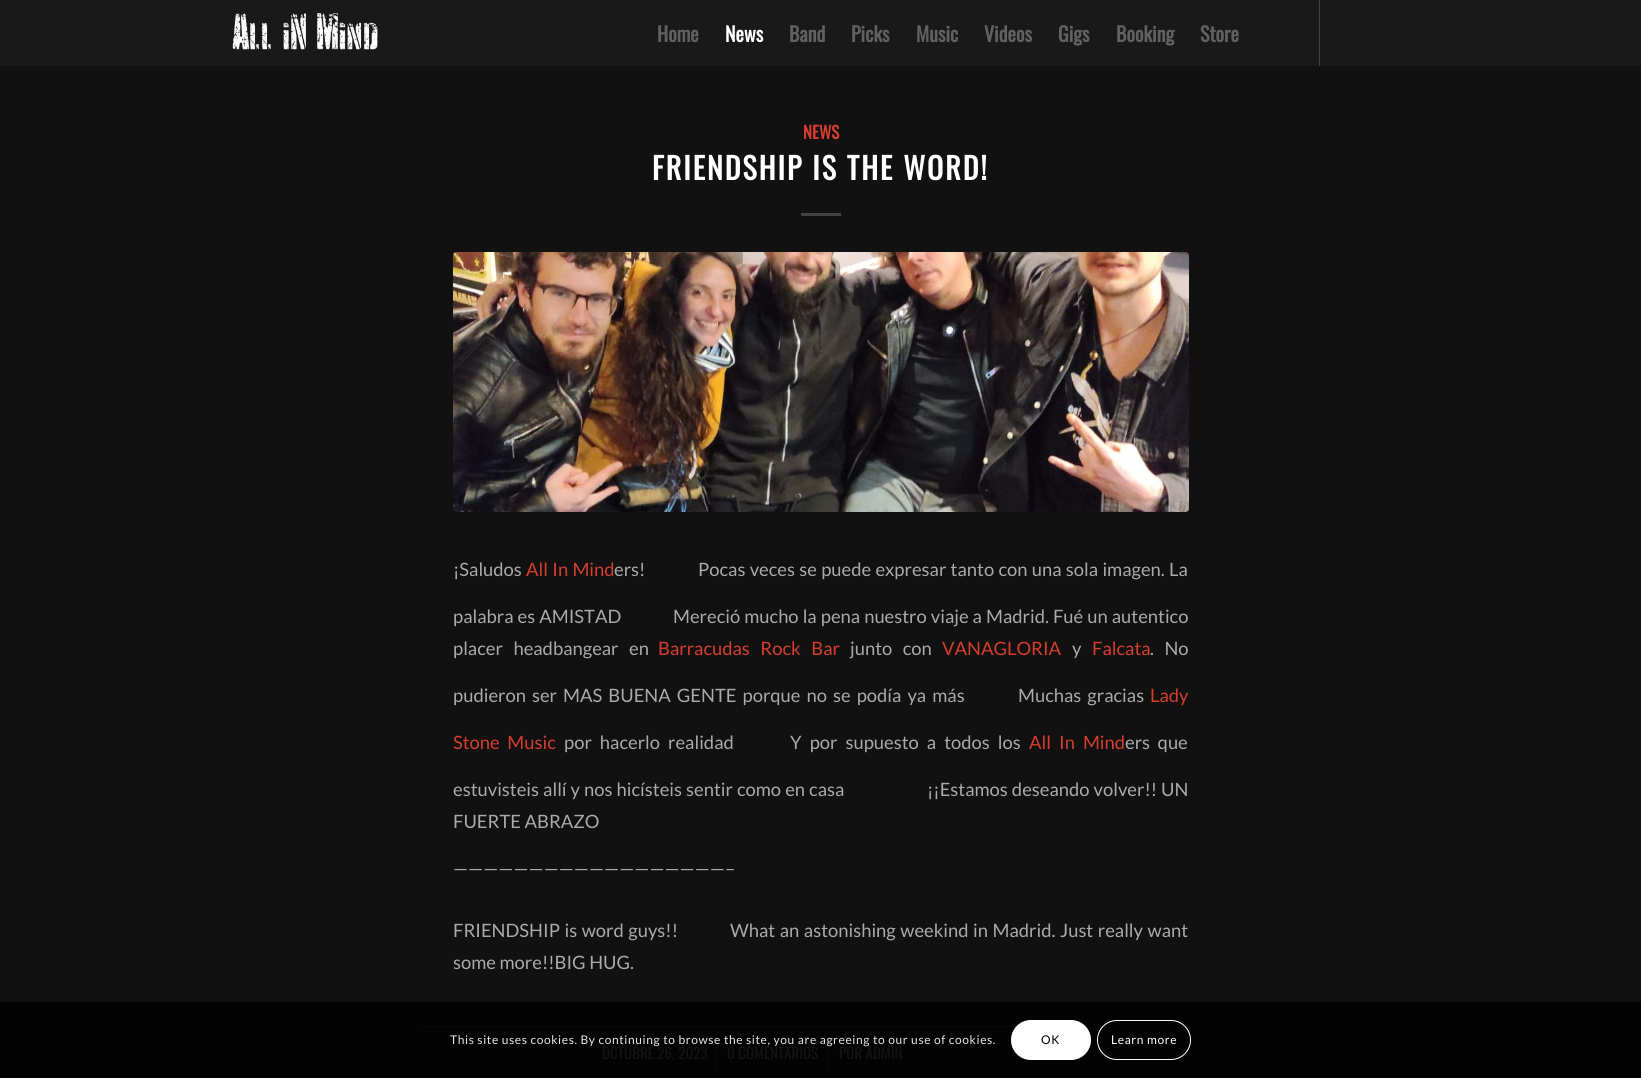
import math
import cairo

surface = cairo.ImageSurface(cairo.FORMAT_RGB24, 1641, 1078)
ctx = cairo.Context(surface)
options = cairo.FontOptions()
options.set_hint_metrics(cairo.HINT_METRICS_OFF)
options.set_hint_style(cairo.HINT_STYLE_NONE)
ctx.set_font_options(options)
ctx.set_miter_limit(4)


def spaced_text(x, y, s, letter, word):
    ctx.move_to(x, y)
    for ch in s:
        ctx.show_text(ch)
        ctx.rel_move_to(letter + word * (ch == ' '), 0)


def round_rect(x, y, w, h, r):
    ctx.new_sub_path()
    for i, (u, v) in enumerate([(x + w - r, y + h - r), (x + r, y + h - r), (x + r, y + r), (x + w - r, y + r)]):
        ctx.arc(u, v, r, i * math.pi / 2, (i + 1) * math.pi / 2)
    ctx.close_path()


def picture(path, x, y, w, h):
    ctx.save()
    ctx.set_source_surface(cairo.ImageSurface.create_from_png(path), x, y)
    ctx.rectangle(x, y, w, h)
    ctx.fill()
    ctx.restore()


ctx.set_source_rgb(0.098, 0.098, 0.098)
ctx.paint()
picture("img1.png", 232, 13, 146, 37)
ctx.set_source_rgb(0.259, 0.259, 0.259)
ctx.rectangle(1319, 0, 1, 66)
ctx.fill()
ctx.select_font_face("Oswald", cairo.FONT_SLANT_NORMAL, cairo.FONT_WEIGHT_BOLD)
ctx.set_font_size(20)
ctx.set_source_rgb(0.38, 0.38, 0.38)
ctx.move_to(657, 42)
ctx.show_text("Home")
ctx.set_source_rgb(1, 1, 1)
ctx.move_to(725, 42)
ctx.show_text("News")
ctx.set_source_rgb(0.38, 0.38, 0.38)
ctx.move_to(789, 42)
ctx.show_text("Band")
ctx.move_to(851, 42)
ctx.show_text("Picks")
ctx.move_to(916, 42)
ctx.show_text("Music")
ctx.move_to(984, 42)
ctx.show_text("Videos")
ctx.move_to(1058, 42)
ctx.show_text("Gigs")
ctx.move_to(1116, 42)
ctx.show_text("Booking")
ctx.move_to(1200, 42)
ctx.show_text("Store")
ctx.set_source_rgb(0.067, 0.067, 0.067)
ctx.rectangle(0, 66, 1641, 936)
ctx.fill()
ctx.set_source_rgb(0.012, 0.012, 0.012)
ctx.rectangle(0, 1002, 1641, 76)
ctx.fill()
ctx.set_font_size(17)
ctx.set_source_rgb(0.839, 0.243, 0.176)
ctx.move_to(803, 139)
ctx.show_text("NEWS")
ctx.set_font_size(30)
ctx.set_source_rgb(1, 1, 1)
spaced_text(652, 180, "FRIENDSHIP IS THE WORD!", 2, 0)
ctx.set_source_rgb(0.259, 0.259, 0.259)
ctx.rectangle(801, 213, 40, 3)
ctx.fill()
picture("img2.png", 453, 252, 736, 260)
ctx.select_font_face("Lato")
ctx.set_font_size(18.4)
ctx.set_source_rgb(0.667, 0.667, 0.667)
ctx.move_to(453, 576)
ctx.show_text("¡Saludos")
ctx.set_source_rgb(0.839, 0.243, 0.176)
spaced_text(526, 576, "All In Mind", 0, 0.75)
ctx.set_source_rgb(0.667, 0.667, 0.667)
ctx.move_to(614, 576)
ctx.show_text("ers!")
spaced_text(698, 576, "Pocas veces se puede expresar tanto con una sola imagen. La", 0, 0.75)
spaced_text(453, 623, "palabra es AMISTAD", 0, 0.5)
spaced_text(673, 623, "Mereció mucho la pena nuestro viaje a Madrid. Fué un autentico", 0, 0.5)
spaced_text(453, 655, "placer headbangear en", 0, 7)
ctx.set_source_rgb(0.839, 0.243, 0.176)
spaced_text(658, 655, "Barracudas Rock Bar", 0, 7)
ctx.set_source_rgb(0.667, 0.667, 0.667)
spaced_text(850, 655, "junto con", 0, 7)
ctx.set_source_rgb(0.839, 0.243, 0.176)
ctx.move_to(942, 655)
ctx.show_text("VANAGLORIA")
ctx.set_source_rgb(0.667, 0.667, 0.667)
ctx.move_to(1072, 655)
ctx.show_text("y")
ctx.set_source_rgb(0.839, 0.243, 0.176)
ctx.move_to(1092, 655)
ctx.show_text("Falcata")
ctx.set_source_rgb(0.667, 0.667, 0.667)
spaced_text(1150, 655, ". No", 0, 7)
spaced_text(453, 702, "pudieron ser MAS BUENA GENTE porque no se podía ya más", 0, 2.5)
spaced_text(1018, 702, "Muchas gracias", 0, 2.5)
ctx.set_source_rgb(0.839, 0.243, 0.176)
ctx.move_to(1150, 702)
ctx.show_text("Lady")
spaced_text(453, 749, "Stone Music", 0, 4)
ctx.set_source_rgb(0.667, 0.667, 0.667)
spaced_text(564, 749, "por hacerlo realidad", 0, 4.5)
spaced_text(790, 749, "Y por supuesto a todos los", 0, 4.5)
ctx.set_source_rgb(0.839, 0.243, 0.176)
spaced_text(1029, 749, "All In Mind", 0, 4.5)
ctx.set_source_rgb(0.667, 0.667, 0.667)
spaced_text(1125, 749, "ers que", 0, 4)
spaced_text(453, 796, "estuvisteis allí y nos hicísteis sentir como en casa", 0, 0.5)
spaced_text(927, 796, "¡¡Estamos deseando volver!! UN", 0, 0.5)
ctx.move_to(453, 828)
ctx.show_text("FUERTE ABRAZO")
ctx.move_to(453, 875)
ctx.show_text("——————————————————–")
spaced_text(453, 937, "FRIENDSHIP is word guys!!", 0, 1)
spaced_text(730, 937, "What an astonishing weekind in Madrid. Just really want", 0, 1)
ctx.move_to(453, 969)
ctx.show_text("some more!!BIG HUG.")
ctx.set_source_rgb(0.039, 0.039, 0.039)
ctx.rectangle(421, 1026, 596, 1)
ctx.fill()
ctx.select_font_face("Oswald")
ctx.set_font_size(15)
ctx.set_source_rgb(0.075, 0.075, 0.075)
ctx.move_to(602, 1059)
ctx.show_text("OCTUBRE 26, 2023")
ctx.set_source_rgb(0.039, 0.039, 0.039)
ctx.rectangle(716, 1038, 1, 31)
ctx.fill()
ctx.set_source_rgb(0.075, 0.075, 0.075)
ctx.move_to(727, 1059)
ctx.show_text("0 COMENTARIOS")
ctx.set_source_rgb(0.039, 0.039, 0.039)
ctx.rectangle(828, 1038, 1, 31)
ctx.fill()
ctx.set_source_rgb(0.075, 0.075, 0.075)
ctx.move_to(839, 1059)
ctx.show_text("POR ADMIN")
ctx.select_font_face("Lato")
ctx.set_font_size(12)
ctx.set_source_rgb(0.902, 0.902, 0.902)
spaced_text(450, 1044, "This site uses cookies. By continuing to browse the site, you are agreeing to our use of cookies.", 0.6, 0)
ctx.set_source_rgb(1, 1, 1)
round_rect(1011, 1020, 80, 40, 20)
ctx.fill()
ctx.set_source_rgb(0, 0, 0)
spaced_text(1041, 1044, "OK", 0.6, 0)
round_rect(1097.5, 1020.5, 93, 39, 19.5)
ctx.set_source_rgb(1, 1, 1)
ctx.set_line_width(1)
ctx.stroke()
spaced_text(1111, 1044, "Learn more", 0.6, 0)
surface.write_to_png("page.png")
